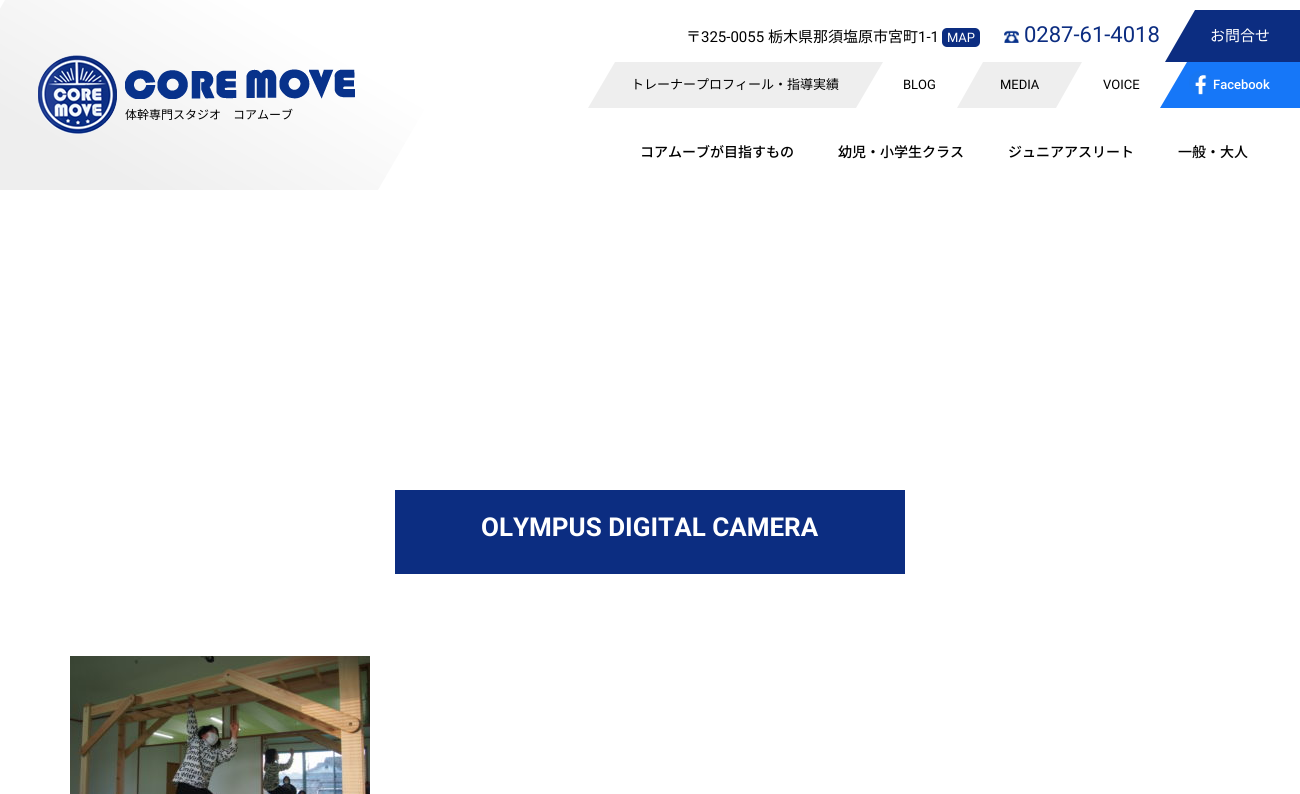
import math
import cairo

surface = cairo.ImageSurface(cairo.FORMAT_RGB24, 1300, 794)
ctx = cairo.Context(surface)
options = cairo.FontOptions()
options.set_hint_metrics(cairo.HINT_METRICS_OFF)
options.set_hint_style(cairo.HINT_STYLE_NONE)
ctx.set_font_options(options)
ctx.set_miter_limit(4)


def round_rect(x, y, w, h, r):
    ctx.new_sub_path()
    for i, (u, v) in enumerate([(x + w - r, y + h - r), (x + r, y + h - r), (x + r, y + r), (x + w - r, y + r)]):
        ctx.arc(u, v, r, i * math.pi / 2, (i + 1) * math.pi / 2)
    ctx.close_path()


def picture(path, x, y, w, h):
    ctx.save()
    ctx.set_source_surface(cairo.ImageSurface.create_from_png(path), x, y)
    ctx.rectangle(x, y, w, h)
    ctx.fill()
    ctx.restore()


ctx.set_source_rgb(1, 1, 1)
ctx.paint()
gradient = cairo.LinearGradient(246, 0, 137, 190)
gradient.add_color_stop_rgba(0, 1, 1, 1, 1)
gradient.add_color_stop_rgba(1, 0.933, 0.933, 0.933, 1)
ctx.set_source(gradient)
ctx.new_path()
ctx.move_to(5, 0)
ctx.line_to(488, 0)
ctx.line_to(378, 190)
ctx.line_to(-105, 190)
ctx.close_path()
ctx.fill()
picture("img1.png", 38, 55, 79, 80)
picture("img2.png", 125, 69, 230, 30)
ctx.select_font_face("Noto Sans JP")
ctx.set_font_size(12)
ctx.set_source_rgb(0, 0, 0)
ctx.move_to(125, 119)
ctx.show_text("体幹専門スタジオ　コアムーブ")
ctx.set_font_size(15)
ctx.move_to(686, 42)
ctx.show_text("〒")
ctx.select_font_face("Roboto")
ctx.move_to(701, 42)
ctx.show_text("325-0055")
ctx.select_font_face("Noto Sans JP")
ctx.move_to(768, 42)
ctx.show_text("栃木県那須塩原市宮町")
ctx.select_font_face("Roboto")
ctx.move_to(918, 42)
ctx.show_text("1-1")
ctx.set_source_rgb(0.047, 0.176, 0.506)
round_rect(942, 28, 38, 19, 5)
ctx.fill()
ctx.set_font_size(13)
ctx.set_source_rgb(1, 1, 1)
ctx.move_to(947, 42)
ctx.show_text("MAP")
picture("img3.png", 1004, 30, 15, 13)
ctx.set_font_size(22)
ctx.set_source_rgb(0.047, 0.176, 0.506)
ctx.move_to(1024, 42)
ctx.show_text("0287-61-4018")
ctx.new_path()
ctx.move_to(1195, 10)
ctx.line_to(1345, 10)
ctx.line_to(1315, 62)
ctx.line_to(1165, 62)
ctx.close_path()
ctx.fill()
ctx.select_font_face("Noto Sans JP")
ctx.set_font_size(15)
ctx.set_source_rgb(1, 1, 1)
ctx.move_to(1210, 41)
ctx.show_text("お問合せ")
ctx.set_source_rgb(0.933, 0.933, 0.933)
ctx.new_path()
ctx.move_to(615, 62)
ctx.line_to(883, 62)
ctx.line_to(856, 108)
ctx.line_to(588, 108)
ctx.close_path()
ctx.fill()
ctx.set_font_size(13)
ctx.set_source_rgb(0, 0, 0)
ctx.move_to(631, 89)
ctx.show_text("トレーナープロフィール・指導実績")
ctx.select_font_face("Roboto")
ctx.move_to(903, 89)
ctx.show_text("BLOG")
ctx.set_source_rgb(0.933, 0.933, 0.933)
ctx.new_path()
ctx.move_to(983, 62)
ctx.line_to(1082, 62)
ctx.line_to(1056, 108)
ctx.line_to(957, 108)
ctx.close_path()
ctx.fill()
ctx.set_source_rgb(0, 0, 0)
ctx.move_to(1000, 89)
ctx.show_text("MEDIA")
ctx.move_to(1103, 89)
ctx.show_text("VOICE")
ctx.set_source_rgb(0.086, 0.467, 0.969)
ctx.new_path()
ctx.move_to(1187, 62)
ctx.line_to(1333, 62)
ctx.line_to(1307, 108)
ctx.line_to(1160, 108)
ctx.close_path()
ctx.fill()
picture("img4.png", 1189, 71, 23, 24)
ctx.select_font_face("Roboto Medium")
ctx.set_source_rgb(1, 1, 1)
ctx.move_to(1213, 89)
ctx.show_text("Facebook")
ctx.select_font_face("Noto Sans JP Medium")
ctx.set_font_size(14)
ctx.set_source_rgb(0, 0, 0)
ctx.move_to(640, 157)
ctx.show_text("コアムーブが目指すもの")
ctx.move_to(838, 157)
ctx.show_text("幼児・小学生クラス")
ctx.move_to(1008, 157)
ctx.show_text("ジュニアアスリート")
ctx.move_to(1178, 157)
ctx.show_text("一般・大人")
ctx.set_source_rgb(0.047, 0.176, 0.506)
ctx.rectangle(395, 490, 510, 84)
ctx.fill()
ctx.select_font_face("Roboto", cairo.FONT_SLANT_NORMAL, cairo.FONT_WEIGHT_BOLD)
ctx.set_font_size(26)
ctx.set_source_rgb(1, 1, 1)
ctx.move_to(481, 536)
ctx.show_text("OLYMPUS DIGITAL CAMERA")
picture("img5.png", 70, 656, 300, 138)
surface.write_to_png("page.png")
